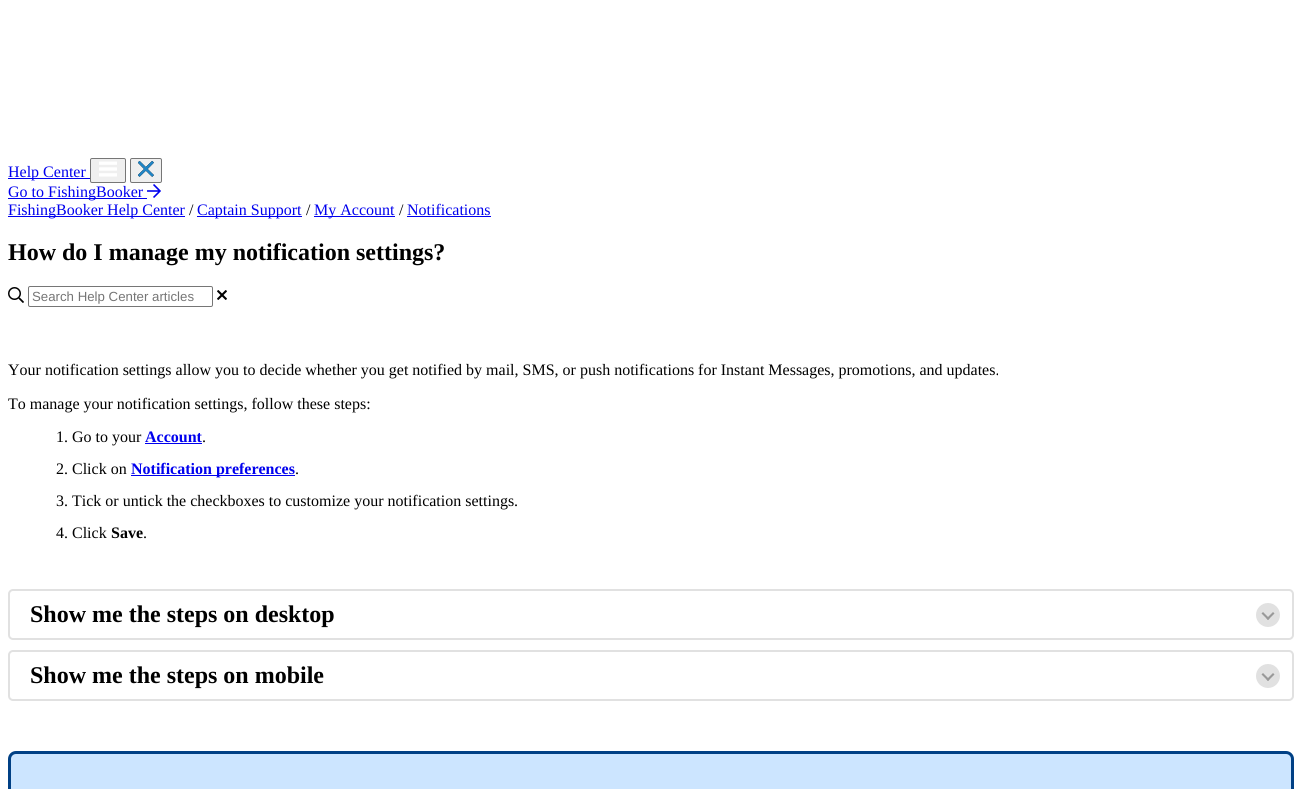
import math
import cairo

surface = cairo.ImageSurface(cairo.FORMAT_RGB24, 1302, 789)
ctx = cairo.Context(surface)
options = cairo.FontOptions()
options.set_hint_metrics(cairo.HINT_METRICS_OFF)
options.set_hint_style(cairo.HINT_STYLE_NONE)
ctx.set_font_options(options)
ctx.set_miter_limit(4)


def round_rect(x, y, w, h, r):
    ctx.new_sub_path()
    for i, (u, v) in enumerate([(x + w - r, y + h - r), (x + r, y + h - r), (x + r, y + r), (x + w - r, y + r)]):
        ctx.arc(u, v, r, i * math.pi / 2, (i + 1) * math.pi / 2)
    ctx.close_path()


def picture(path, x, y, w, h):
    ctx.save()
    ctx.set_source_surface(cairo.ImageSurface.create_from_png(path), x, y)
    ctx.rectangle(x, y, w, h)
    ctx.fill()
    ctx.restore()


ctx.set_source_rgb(1, 1, 1)
ctx.paint()
ctx.set_source_rgb(0, 0, 0.933)
ctx.rectangle(8, 178, 82, 1)
ctx.fill()
ctx.select_font_face("Liberation Serif")
ctx.set_font_size(16)
ctx.move_to(8, 177)
ctx.show_text("Help Center")
ctx.set_source_rgb(0.937, 0.937, 0.937)
round_rect(90.5, 158.5, 35, 24, 1.5)
ctx.fill_preserve()
ctx.set_source_rgb(0.463, 0.463, 0.463)
ctx.set_line_width(1)
ctx.stroke()
picture("img1.png", 99, 161, 18, 16)
ctx.set_source_rgb(0.937, 0.937, 0.937)
round_rect(130.5, 158.5, 31, 24, 1.5)
ctx.fill_preserve()
ctx.set_source_rgb(0.463, 0.463, 0.463)
ctx.stroke()
picture("img2.png", 138, 161, 16, 16)
ctx.set_source_rgb(0, 0, 0.933)
ctx.rectangle(8, 198, 139, 1)
ctx.fill()
ctx.move_to(8, 197)
ctx.show_text("Go to FishingBooker")
picture("img3.png", 147, 184, 14, 14)
ctx.rectangle(8, 216, 177, 1)
ctx.fill()
ctx.move_to(8, 215)
ctx.show_text("FishingBooker Help Center")
ctx.set_source_rgb(0, 0, 0)
ctx.move_to(189, 215)
ctx.show_text("/")
ctx.set_source_rgb(0, 0, 0.933)
ctx.rectangle(197, 216, 105, 1)
ctx.fill()
ctx.move_to(197, 215)
ctx.show_text("Captain Support")
ctx.set_source_rgb(0, 0, 0)
ctx.move_to(306, 215)
ctx.show_text("/")
ctx.set_source_rgb(0, 0, 0.933)
ctx.rectangle(314, 216, 81, 1)
ctx.fill()
ctx.move_to(314, 215)
ctx.show_text("My Account")
ctx.set_source_rgb(0, 0, 0)
ctx.move_to(399, 215)
ctx.show_text("/")
ctx.set_source_rgb(0, 0, 0.933)
ctx.move_to(407, 215)
ctx.show_text("Notifications")
ctx.rectangle(407, 216, 84, 1)
ctx.fill()
ctx.select_font_face("Liberation Serif", cairo.FONT_SLANT_NORMAL, cairo.FONT_WEIGHT_BOLD)
ctx.set_font_size(24)
ctx.set_source_rgb(0, 0, 0)
ctx.move_to(8, 260)
ctx.show_text("How do I manage my notification settings?")
picture("img4.png", 8, 287, 16, 16)
round_rect(28.5, 286.5, 184, 20, 1.5)
ctx.set_source_rgb(0.463, 0.463, 0.463)
ctx.stroke()
ctx.select_font_face("Liberation Sans")
ctx.set_font_size(13.25)
ctx.set_source_rgb(0.459, 0.459, 0.459)
ctx.move_to(32, 301)
ctx.show_text("Search Help Center articles")
picture("img5.png", 217, 290, 10, 10)
ctx.select_font_face("Liberation Serif")
ctx.set_font_size(16)
ctx.set_source_rgb(0, 0, 0)
ctx.move_to(8, 375)
ctx.show_text("Your notification settings allow you to decide whether you get notified by mail, SMS, or push notifications for Instant Messages, promotions, and updates.")
ctx.move_to(8, 409)
ctx.show_text("To manage your notification settings, follow these steps:")
ctx.move_to(56, 442)
ctx.show_text("1. Go to your")
ctx.select_font_face("Liberation Serif", cairo.FONT_SLANT_NORMAL, cairo.FONT_WEIGHT_BOLD)
ctx.set_source_rgb(0, 0, 0.933)
ctx.move_to(145, 442)
ctx.show_text("Account")
ctx.rectangle(145, 443, 57, 1)
ctx.fill()
ctx.select_font_face("Liberation Serif")
ctx.set_source_rgb(0, 0, 0)
ctx.move_to(202, 442)
ctx.show_text(".")
ctx.move_to(56, 474)
ctx.show_text("2. Click on")
ctx.set_source_rgb(0, 0, 0.933)
ctx.rectangle(131, 475, 164, 1)
ctx.fill()
ctx.select_font_face("Liberation Serif", cairo.FONT_SLANT_NORMAL, cairo.FONT_WEIGHT_BOLD)
ctx.move_to(131, 474)
ctx.show_text("Notification preferences")
ctx.select_font_face("Liberation Serif")
ctx.set_source_rgb(0, 0, 0)
ctx.move_to(295, 474)
ctx.show_text(".")
ctx.move_to(56, 506)
ctx.show_text("3. Tick or untick the checkboxes to customize your notification settings.")
ctx.move_to(56, 538)
ctx.show_text("4. Click")
ctx.select_font_face("Liberation Serif", cairo.FONT_SLANT_NORMAL, cairo.FONT_WEIGHT_BOLD)
ctx.move_to(111, 538)
ctx.show_text("Save")
ctx.select_font_face("Liberation Serif")
ctx.move_to(143, 538)
ctx.show_text(".")
round_rect(9, 590, 1284, 49, 4)
ctx.set_source_rgb(0.882, 0.882, 0.882)
ctx.set_line_width(2)
ctx.stroke()
ctx.select_font_face("Liberation Serif", cairo.FONT_SLANT_NORMAL, cairo.FONT_WEIGHT_BOLD)
ctx.set_font_size(24)
ctx.set_source_rgb(0, 0, 0)
ctx.move_to(30, 622)
ctx.show_text("Show me the steps on desktop")
ctx.set_source_rgb(0.882, 0.882, 0.882)
ctx.new_path()
ctx.arc(1268, 615, 12, 0, 2 * math.pi)
ctx.fill()
ctx.set_source_rgb(0.6, 0.6, 0.6)
ctx.new_path()
ctx.move_to(1268, 620)
ctx.line_to(1261.5, 613.5)
ctx.line_to(1263, 612)
ctx.line_to(1269.5, 618.5)
ctx.close_path()
ctx.fill()
ctx.new_path()
ctx.move_to(1268, 620)
ctx.line_to(1266.5, 618.5)
ctx.line_to(1273, 612)
ctx.line_to(1274.5, 613.5)
ctx.close_path()
ctx.fill()
round_rect(9, 651, 1284, 49, 4)
ctx.set_source_rgb(0.882, 0.882, 0.882)
ctx.stroke()
ctx.set_source_rgb(0, 0, 0)
ctx.move_to(30, 683)
ctx.show_text("Show me the steps on mobile")
ctx.set_source_rgb(0.882, 0.882, 0.882)
ctx.new_path()
ctx.arc(1268, 676, 12, 0, 2 * math.pi)
ctx.fill()
ctx.set_source_rgb(0.6, 0.6, 0.6)
ctx.new_path()
ctx.move_to(1268, 681)
ctx.line_to(1261.5, 674.5)
ctx.line_to(1263, 673)
ctx.line_to(1269.5, 679.5)
ctx.close_path()
ctx.fill()
ctx.new_path()
ctx.move_to(1268, 681)
ctx.line_to(1266.5, 679.5)
ctx.line_to(1273, 673)
ctx.line_to(1274.5, 674.5)
ctx.close_path()
ctx.fill()
ctx.set_source_rgb(0.8, 0.898, 1)
round_rect(9.5, 752.5, 1283, 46, 6.5)
ctx.fill_preserve()
ctx.set_source_rgb(0, 0.251, 0.522)
ctx.set_line_width(3)
ctx.stroke()
surface.write_to_png("page.png")
